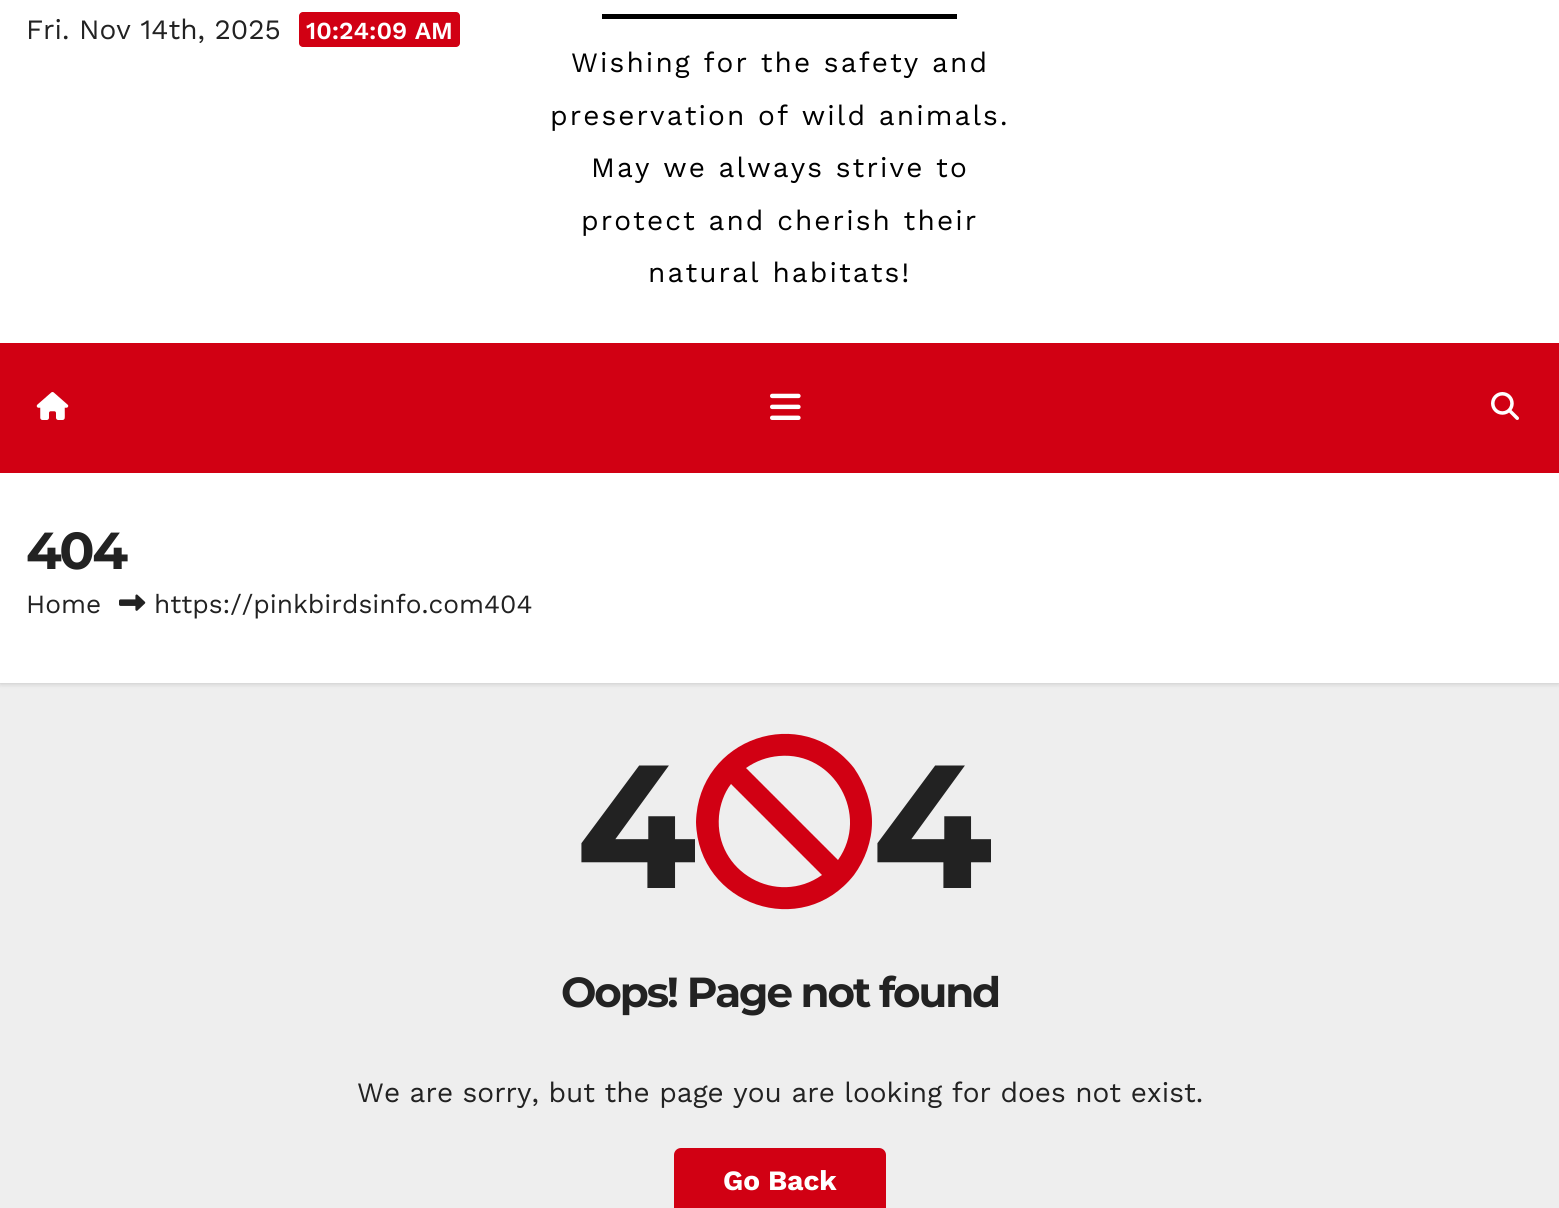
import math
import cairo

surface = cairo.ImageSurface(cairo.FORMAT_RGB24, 1559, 1208)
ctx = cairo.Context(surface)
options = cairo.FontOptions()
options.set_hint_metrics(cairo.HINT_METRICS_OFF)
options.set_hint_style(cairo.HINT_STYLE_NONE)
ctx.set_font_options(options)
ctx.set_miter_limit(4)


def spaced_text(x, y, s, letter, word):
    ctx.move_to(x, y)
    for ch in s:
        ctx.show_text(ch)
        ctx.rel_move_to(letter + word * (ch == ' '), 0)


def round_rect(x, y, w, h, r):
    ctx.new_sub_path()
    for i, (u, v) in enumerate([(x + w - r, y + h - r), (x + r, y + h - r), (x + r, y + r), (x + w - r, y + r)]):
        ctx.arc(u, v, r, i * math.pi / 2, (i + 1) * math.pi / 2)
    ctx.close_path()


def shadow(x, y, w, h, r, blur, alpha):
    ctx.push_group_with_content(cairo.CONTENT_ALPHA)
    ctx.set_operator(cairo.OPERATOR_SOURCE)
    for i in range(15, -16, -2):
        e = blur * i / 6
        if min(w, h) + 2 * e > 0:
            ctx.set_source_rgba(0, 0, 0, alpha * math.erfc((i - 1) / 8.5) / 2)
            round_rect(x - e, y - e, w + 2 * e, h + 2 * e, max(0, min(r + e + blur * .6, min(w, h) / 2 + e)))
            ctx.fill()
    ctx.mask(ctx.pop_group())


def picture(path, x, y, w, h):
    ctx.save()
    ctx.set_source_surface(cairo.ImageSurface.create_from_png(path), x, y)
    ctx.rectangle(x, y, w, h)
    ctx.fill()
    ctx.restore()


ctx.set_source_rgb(0.933, 0.933, 0.933)
ctx.paint()
ctx.set_source_rgb(1, 1, 1)
ctx.rectangle(0, 0, 1559, 343)
ctx.fill()
ctx.select_font_face("Work Sans")
ctx.set_font_size(28)
ctx.set_source_rgb(0.133, 0.133, 0.133)
ctx.move_to(26, 39)
ctx.show_text("Fri. Nov 14th, 2025")
ctx.set_source_rgb(0.82, 0, 0.078)
round_rect(299, 12, 161, 35, 4)
ctx.fill()
ctx.select_font_face("Work Sans SemiBold")
ctx.set_font_size(24.5)
ctx.set_source_rgb(1, 1, 1)
ctx.move_to(306, 39)
ctx.show_text("10:24:09 AM")
ctx.set_source_rgb(0, 0, 0)
ctx.rectangle(602, 14, 355, 5)
ctx.fill()
ctx.select_font_face("Work Sans")
ctx.set_font_size(28)
spaced_text(571, 72, "Wishing for the safety and", 2.1, 0)
spaced_text(550, 125, "preservation of wild animals.", 2.1, 0)
spaced_text(591, 177, "May we always strive to", 2.1, 0)
spaced_text(581, 230, "protect and cherish their", 2.1, 0)
spaced_text(648, 282, "natural habitats!", 2.1, 0)
ctx.set_source_rgb(0, 0, 0)
shadow(0, 474, 1559, 210, 0, 2.5, 0.15)
ctx.set_source_rgb(0.82, 0, 0.078)
ctx.rectangle(0, 343, 1559, 130)
ctx.fill()
picture("img1.png", 36, 392, 33, 28)
picture("img2.png", 770, 393, 31, 27)
picture("img3.png", 1491, 392, 28, 28)
ctx.set_source_rgb(1, 1, 1)
ctx.rectangle(0, 473, 1559, 210)
ctx.fill()
ctx.select_font_face("Montserrat", cairo.FONT_SLANT_NORMAL, cairo.FONT_WEIGHT_BOLD)
ctx.set_font_size(52)
ctx.set_source_rgb(0.133, 0.133, 0.133)
spaced_text(26, 569, "404", -2.5, 0)
ctx.select_font_face("Work Sans")
ctx.set_font_size(26.25)
ctx.move_to(26, 613)
ctx.show_text("Home")
picture("img4.png", 119, 594, 27, 17)
ctx.move_to(154, 613)
ctx.show_text("https://pinkbirdsinfo.com404")
ctx.select_font_face("Montserrat", cairo.FONT_SLANT_NORMAL, cairo.FONT_WEIGHT_BOLD)
ctx.set_font_size(175)
spaced_text(576, 888, "4", -9, 0)
ctx.set_source_rgb(0.82, 0, 0.078)
ctx.new_path()
ctx.move_to(822, 875)
ctx.line_to(731, 784)
ctx.curve_to(724, 793, 720, 805, 719, 816)
ctx.curve_to(714, 872, 777, 907, 822, 875)
ctx.close_path()
ctx.move_to(838, 860)
ctx.curve_to(870, 815, 834, 751, 779, 756)
ctx.curve_to(767, 757, 756, 761, 746, 768)
ctx.close_path()
ctx.move_to(696, 822)
ctx.curve_to(698, 738, 802, 702, 854, 768)
ctx.curve_to(865, 784, 872, 803, 872, 822)
ctx.curve_to(872, 841, 865, 860, 854, 875)
ctx.curve_to(802, 941, 698, 905, 696, 822)
ctx.close_path()
ctx.fill()
ctx.set_source_rgb(0.133, 0.133, 0.133)
spaced_text(872, 888, "4", -9, 0)
ctx.set_font_size(42)
spaced_text(561, 1007, "Oops! Page not found", -2.1, 0)
ctx.select_font_face("Work Sans")
ctx.set_font_size(28)
ctx.move_to(357, 1102)
ctx.show_text("We are sorry, but the page you are looking for does not exist.")
ctx.set_source_rgb(0.82, 0, 0.078)
round_rect(676, 1150, 208, 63, 5)
ctx.fill_preserve()
ctx.set_line_width(4)
ctx.stroke()
ctx.select_font_face("Work Sans", cairo.FONT_SLANT_NORMAL, cairo.FONT_WEIGHT_BOLD)
ctx.set_source_rgb(1, 1, 1)
ctx.move_to(723, 1190)
ctx.show_text("Go Back")
surface.write_to_png("page.png")
